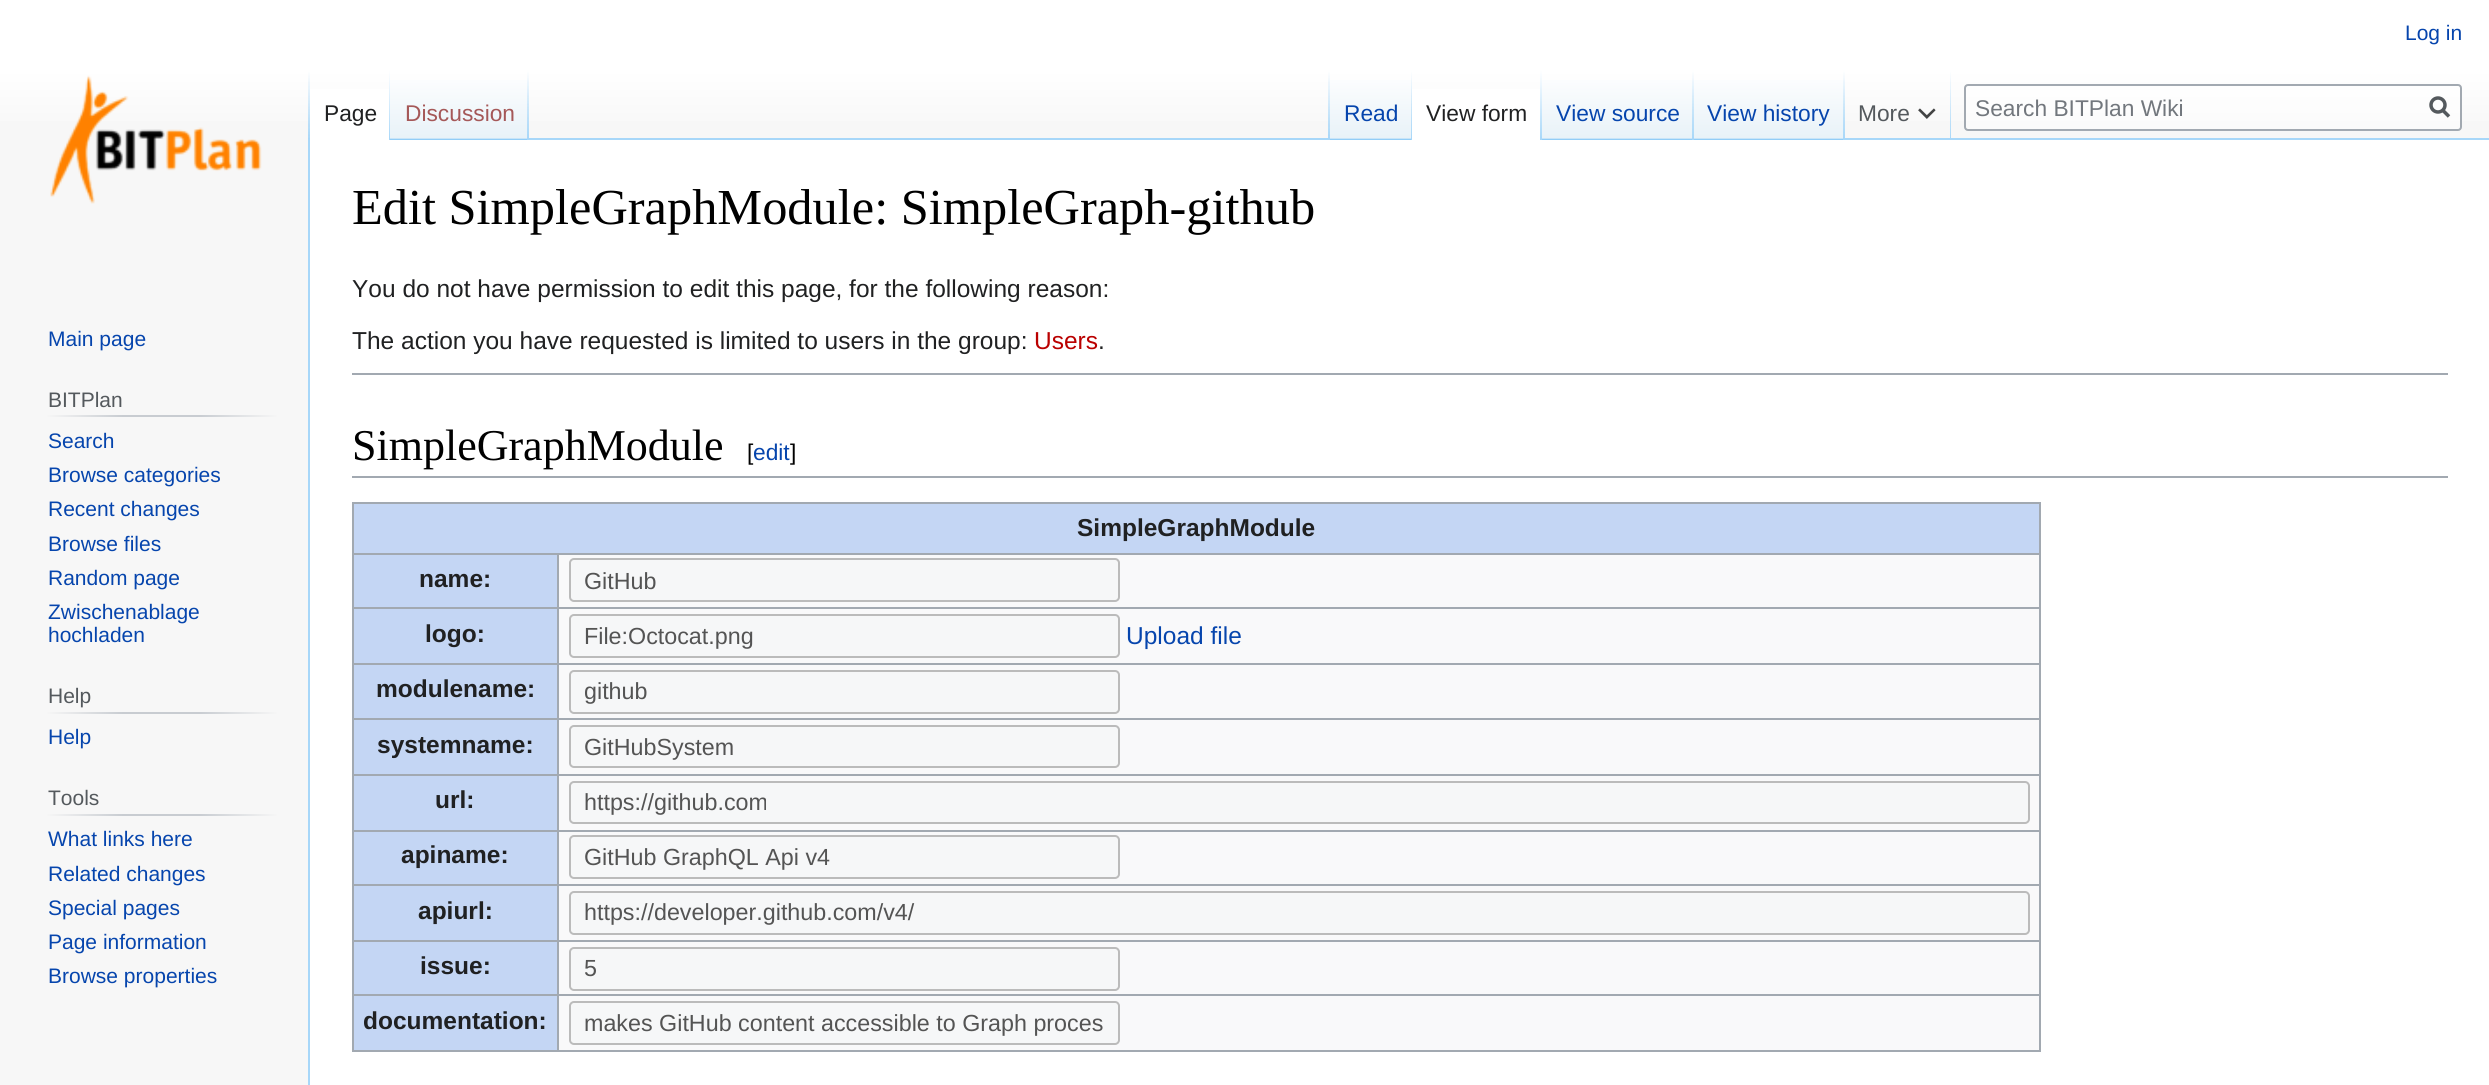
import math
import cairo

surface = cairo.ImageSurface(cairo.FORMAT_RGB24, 2489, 1085)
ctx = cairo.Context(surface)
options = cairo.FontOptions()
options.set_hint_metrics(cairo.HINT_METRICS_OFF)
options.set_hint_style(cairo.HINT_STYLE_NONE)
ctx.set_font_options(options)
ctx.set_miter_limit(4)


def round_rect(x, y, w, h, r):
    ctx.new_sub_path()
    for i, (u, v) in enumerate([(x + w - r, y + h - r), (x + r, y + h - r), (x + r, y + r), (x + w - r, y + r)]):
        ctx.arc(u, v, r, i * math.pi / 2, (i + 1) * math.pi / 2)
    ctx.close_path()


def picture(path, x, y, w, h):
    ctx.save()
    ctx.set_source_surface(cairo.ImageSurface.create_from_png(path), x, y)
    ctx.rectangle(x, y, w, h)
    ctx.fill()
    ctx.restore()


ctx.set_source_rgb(0.965, 0.965, 0.965)
ctx.paint()
gradient = cairo.LinearGradient(1245, 0, 1245, 140)
gradient.add_color_stop_rgba(0.5, 1, 1, 1, 1)
gradient.add_color_stop_rgba(1, 0.965, 0.965, 0.965, 1)
ctx.set_source(gradient)
ctx.rectangle(0, 0, 2489, 121)
ctx.fill()
ctx.select_font_face("Liberation Sans")
ctx.set_font_size(21)
ctx.set_source_rgb(0.024, 0.271, 0.678)
ctx.move_to(2405, 40)
ctx.show_text("Log in")
ctx.set_source_rgb(0.655, 0.843, 0.976)
ctx.rectangle(308, 138, 2, 947)
ctx.fill()
gradient = cairo.LinearGradient(309, 70, 309, 140)
gradient.add_color_stop_rgba(0, 0.655, 0.843, 0.976, 0)
gradient.add_color_stop_rgba(1, 0.655, 0.843, 0.976, 1)
ctx.set_source(gradient)
ctx.rectangle(308, 70, 2, 70)
ctx.fill()
ctx.set_source_rgb(1, 1, 1)
ctx.rectangle(310, 89, 79, 51)
ctx.fill()
gradient = cairo.LinearGradient(389, 70, 389, 140)
gradient.add_color_stop_rgba(0, 1, 1, 1, 1)
gradient.add_color_stop_rgba(1, 0.655, 0.843, 0.976, 1)
ctx.set_source(gradient)
ctx.rectangle(389, 70, 1, 70)
ctx.fill()
ctx.set_font_size(22.75)
ctx.set_source_rgb(0.125, 0.129, 0.133)
ctx.move_to(324, 121)
ctx.show_text("Page")
gradient = cairo.LinearGradient(459, 140, 459, 70)
gradient.add_color_stop_rgba(0, 0.467, 0.757, 0.965, 1)
gradient.add_color_stop_rgba(0.03, 0.91, 0.949, 0.973, 1)
gradient.add_color_stop_rgba(1, 1, 1, 1, 1)
ctx.set_source(gradient)
ctx.rectangle(390, 80, 139, 60)
ctx.fill()
gradient = cairo.LinearGradient(528, 70, 528, 140)
gradient.add_color_stop_rgba(0, 0.655, 0.843, 0.976, 0)
gradient.add_color_stop_rgba(1, 0.655, 0.843, 0.976, 1)
ctx.set_source(gradient)
ctx.rectangle(527, 70, 2, 70)
ctx.fill()
ctx.set_source_rgb(0.647, 0.345, 0.345)
ctx.move_to(405, 121)
ctx.show_text("Discussion")
ctx.set_source_rgb(0.655, 0.843, 0.976)
ctx.rectangle(529, 138, 1960, 2)
ctx.fill()
gradient = cairo.LinearGradient(1329, 70, 1329, 140)
gradient.add_color_stop_rgba(0, 0.655, 0.843, 0.976, 0)
gradient.add_color_stop_rgba(1, 0.655, 0.843, 0.976, 1)
ctx.set_source(gradient)
ctx.rectangle(1328, 70, 2, 70)
ctx.fill()
gradient = cairo.LinearGradient(1371, 140, 1371, 70)
gradient.add_color_stop_rgba(0, 0.467, 0.757, 0.965, 1)
gradient.add_color_stop_rgba(0.03, 0.91, 0.949, 0.973, 1)
gradient.add_color_stop_rgba(1, 1, 1, 1, 1)
ctx.set_source(gradient)
ctx.rectangle(1330, 80, 82, 60)
ctx.fill()
gradient = cairo.LinearGradient(1411, 70, 1411, 140)
gradient.add_color_stop_rgba(0, 0.655, 0.843, 0.976, 0)
gradient.add_color_stop_rgba(1, 0.655, 0.843, 0.976, 1)
ctx.set_source(gradient)
ctx.rectangle(1411, 70, 1, 70)
ctx.fill()
ctx.set_source_rgb(0.024, 0.271, 0.678)
ctx.move_to(1344, 121)
ctx.show_text("Read")
ctx.set_source_rgb(1, 1, 1)
ctx.rectangle(1412, 89, 128, 51)
ctx.fill()
gradient = cairo.LinearGradient(1541, 70, 1541, 140)
gradient.add_color_stop_rgba(0, 1, 1, 1, 1)
gradient.add_color_stop_rgba(1, 0.655, 0.843, 0.976, 1)
ctx.set_source(gradient)
ctx.rectangle(1540, 70, 2, 70)
ctx.fill()
ctx.set_source_rgb(0.125, 0.129, 0.133)
ctx.move_to(1426, 121)
ctx.show_text("View form")
gradient = cairo.LinearGradient(1618, 140, 1618, 70)
gradient.add_color_stop_rgba(0, 0.467, 0.757, 0.965, 1)
gradient.add_color_stop_rgba(0.03, 0.91, 0.949, 0.973, 1)
gradient.add_color_stop_rgba(1, 1, 1, 1, 1)
ctx.set_source(gradient)
ctx.rectangle(1542, 80, 152, 60)
ctx.fill()
gradient = cairo.LinearGradient(1693, 70, 1693, 140)
gradient.add_color_stop_rgba(0, 0.655, 0.843, 0.976, 0)
gradient.add_color_stop_rgba(1, 0.655, 0.843, 0.976, 1)
ctx.set_source(gradient)
ctx.rectangle(1692, 70, 2, 70)
ctx.fill()
ctx.set_source_rgb(0.024, 0.271, 0.678)
ctx.move_to(1556, 121)
ctx.show_text("View source")
gradient = cairo.LinearGradient(1769, 140, 1769, 70)
gradient.add_color_stop_rgba(0, 0.467, 0.757, 0.965, 1)
gradient.add_color_stop_rgba(0.03, 0.91, 0.949, 0.973, 1)
gradient.add_color_stop_rgba(1, 1, 1, 1, 1)
ctx.set_source(gradient)
ctx.rectangle(1694, 80, 151, 60)
ctx.fill()
gradient = cairo.LinearGradient(1844, 70, 1844, 140)
gradient.add_color_stop_rgba(0, 0.655, 0.843, 0.976, 0)
gradient.add_color_stop_rgba(1, 0.655, 0.843, 0.976, 1)
ctx.set_source(gradient)
ctx.rectangle(1843, 70, 2, 70)
ctx.fill()
ctx.set_source_rgb(0.024, 0.271, 0.678)
ctx.move_to(1707, 121)
ctx.show_text("View history")
gradient = cairo.LinearGradient(1950, 70, 1950, 140)
gradient.add_color_stop_rgba(0, 0.655, 0.843, 0.976, 0)
gradient.add_color_stop_rgba(1, 0.655, 0.843, 0.976, 1)
ctx.set_source(gradient)
ctx.rectangle(1950, 70, 1, 70)
ctx.fill()
ctx.set_source_rgb(0.329, 0.349, 0.365)
ctx.move_to(1858, 121)
ctx.show_text("More")
picture("img1.png", 1918, 108, 18, 11)
ctx.set_source_rgba(1, 1, 1, 0.5)
round_rect(1965, 85, 496, 45, 3)
ctx.fill_preserve()
ctx.set_source_rgb(0.635, 0.663, 0.694)
ctx.stroke()
ctx.set_source_rgb(0.447, 0.467, 0.49)
ctx.move_to(1975, 116)
ctx.show_text("Search BITPlan Wiki")
ctx.new_path()
ctx.move_to(2449, 116.5)
ctx.line_to(2442, 109.5)
ctx.set_source_rgb(0.329, 0.349, 0.365)
ctx.set_line_width(3.5)
ctx.stroke()
ctx.arc(2438, 105, 7, 0, 2 * math.pi)
ctx.stroke()
picture("img2.png", 50, 75, 212, 129)
ctx.set_font_size(21)
ctx.set_source_rgb(0.024, 0.271, 0.678)
ctx.move_to(48, 346)
ctx.show_text("Main page")
gradient = cairo.LinearGradient(47, 416, 277, 416)
gradient.add_color_stop_rgba(0, 0.965, 0.965, 0.965, 1)
gradient.add_color_stop_rgba(0.33, 0.784, 0.8, 0.82, 1)
gradient.add_color_stop_rgba(0.66, 0.784, 0.8, 0.82, 1)
gradient.add_color_stop_rgba(1, 0.965, 0.965, 0.965, 1)
ctx.set_source(gradient)
ctx.rectangle(47, 415, 230, 2)
ctx.fill()
ctx.set_source_rgb(0.329, 0.349, 0.365)
ctx.move_to(48, 407)
ctx.show_text("BITPlan")
ctx.set_source_rgb(0.024, 0.271, 0.678)
ctx.move_to(48, 448)
ctx.show_text("Search")
ctx.move_to(48, 482)
ctx.show_text("Browse categories")
ctx.move_to(48, 516)
ctx.show_text("Recent changes")
ctx.move_to(48, 551)
ctx.show_text("Browse files")
ctx.move_to(48, 585)
ctx.show_text("Random page")
ctx.move_to(48, 619)
ctx.show_text("Zwischenablage")
ctx.move_to(48, 642)
ctx.show_text("hochladen")
gradient = cairo.LinearGradient(47, 713, 277, 713)
gradient.add_color_stop_rgba(0, 0.965, 0.965, 0.965, 1)
gradient.add_color_stop_rgba(0.33, 0.784, 0.8, 0.82, 1)
gradient.add_color_stop_rgba(0.66, 0.784, 0.8, 0.82, 1)
gradient.add_color_stop_rgba(1, 0.965, 0.965, 0.965, 1)
ctx.set_source(gradient)
ctx.rectangle(47, 712, 230, 2)
ctx.fill()
ctx.set_source_rgb(0.329, 0.349, 0.365)
ctx.move_to(48, 703)
ctx.show_text("Help")
ctx.set_source_rgb(0.024, 0.271, 0.678)
ctx.move_to(48, 744)
ctx.show_text("Help")
gradient = cairo.LinearGradient(47, 815, 277, 815)
gradient.add_color_stop_rgba(0, 0.965, 0.965, 0.965, 1)
gradient.add_color_stop_rgba(0.33, 0.784, 0.8, 0.82, 1)
gradient.add_color_stop_rgba(0.66, 0.784, 0.8, 0.82, 1)
gradient.add_color_stop_rgba(1, 0.965, 0.965, 0.965, 1)
ctx.set_source(gradient)
ctx.rectangle(47, 814, 230, 2)
ctx.fill()
ctx.set_source_rgb(0.329, 0.349, 0.365)
ctx.move_to(48, 805)
ctx.show_text("Tools")
ctx.set_source_rgb(0.024, 0.271, 0.678)
ctx.move_to(48, 846)
ctx.show_text("What links here")
ctx.move_to(48, 881)
ctx.show_text("Related changes")
ctx.move_to(48, 915)
ctx.show_text("Special pages")
ctx.move_to(48, 949)
ctx.show_text("Page information")
ctx.move_to(48, 983)
ctx.show_text("Browse properties")
ctx.set_source_rgb(1, 1, 1)
ctx.rectangle(310, 140, 2179, 945)
ctx.fill()
ctx.select_font_face("Liberation Serif")
ctx.set_font_size(50.4)
ctx.set_source_rgb(0, 0, 0)
ctx.move_to(352, 224)
ctx.show_text("Edit SimpleGraphModule: SimpleGraph-github")
ctx.select_font_face("Liberation Sans")
ctx.set_font_size(24.5)
ctx.set_source_rgb(0.125, 0.129, 0.133)
ctx.move_to(352, 297)
ctx.show_text("You do not have permission to edit this page, for the following reason:")
ctx.move_to(352, 349)
ctx.show_text("The action you have requested is limited to users in the group:")
ctx.set_source_rgb(0.729, 0, 0)
ctx.move_to(1034, 349)
ctx.show_text("Users")
ctx.set_source_rgb(0.125, 0.129, 0.133)
ctx.move_to(1098, 349)
ctx.show_text(".")
ctx.set_source_rgb(0.635, 0.663, 0.694)
ctx.rectangle(352, 373, 2096, 2)
ctx.fill()
ctx.rectangle(352, 476, 2096, 2)
ctx.fill()
ctx.select_font_face("Liberation Serif")
ctx.set_font_size(44)
ctx.set_source_rgb(0, 0, 0)
ctx.move_to(352, 460)
ctx.show_text("SimpleGraphModule")
ctx.select_font_face("Liberation Sans")
ctx.set_font_size(22.75)
ctx.move_to(747, 460)
ctx.show_text("[")
ctx.set_source_rgb(0.024, 0.271, 0.678)
ctx.move_to(753, 460)
ctx.show_text("edit")
ctx.set_source_rgb(0, 0, 0)
ctx.move_to(790, 460)
ctx.show_text("]")
ctx.set_source_rgb(0.973, 0.976, 0.98)
ctx.rectangle(559, 555, 1480, 495)
ctx.fill()
ctx.set_source_rgb(0.635, 0.663, 0.694)
ctx.rectangle(352, 502, 1689, 2)
ctx.fill()
ctx.rectangle(2039, 502, 2, 550)
ctx.fill()
ctx.rectangle(352, 1050, 1689, 2)
ctx.fill()
ctx.rectangle(352, 502, 2, 550)
ctx.fill()
ctx.set_source_rgb(0.769, 0.839, 0.957)
ctx.rectangle(354, 504, 1685, 49)
ctx.fill()
ctx.select_font_face("Liberation Sans", cairo.FONT_SLANT_NORMAL, cairo.FONT_WEIGHT_BOLD)
ctx.set_font_size(24.5)
ctx.set_source_rgb(0.125, 0.129, 0.133)
ctx.move_to(1077, 536)
ctx.show_text("SimpleGraphModule")
ctx.set_source_rgb(0.769, 0.839, 0.957)
ctx.rectangle(354, 555, 203, 52)
ctx.fill()
ctx.set_source_rgb(0.635, 0.663, 0.694)
ctx.rectangle(557, 553, 1484, 2)
ctx.fill()
ctx.rectangle(557, 607, 1484, 2)
ctx.fill()
ctx.rectangle(557, 663, 1484, 2)
ctx.fill()
ctx.rectangle(557, 718, 1484, 2)
ctx.fill()
ctx.rectangle(557, 774, 1484, 2)
ctx.fill()
ctx.rectangle(557, 830, 1484, 2)
ctx.fill()
ctx.rectangle(557, 884, 1484, 2)
ctx.fill()
ctx.rectangle(557, 940, 1484, 2)
ctx.fill()
ctx.rectangle(557, 994, 1484, 2)
ctx.fill()
ctx.rectangle(557, 994, 2, 58)
ctx.fill()
ctx.rectangle(352, 994, 206, 2)
ctx.fill()
ctx.rectangle(557, 940, 2, 56)
ctx.fill()
ctx.rectangle(352, 940, 206, 2)
ctx.fill()
ctx.rectangle(557, 884, 2, 58)
ctx.fill()
ctx.rectangle(352, 884, 206, 2)
ctx.fill()
ctx.rectangle(557, 830, 2, 56)
ctx.fill()
ctx.rectangle(352, 830, 206, 2)
ctx.fill()
ctx.rectangle(557, 774, 2, 57)
ctx.fill()
ctx.rectangle(352, 774, 206, 2)
ctx.fill()
ctx.rectangle(557, 718, 2, 57)
ctx.fill()
ctx.rectangle(352, 718, 206, 2)
ctx.fill()
ctx.rectangle(557, 663, 2, 56)
ctx.fill()
ctx.rectangle(352, 663, 206, 2)
ctx.fill()
ctx.rectangle(557, 607, 2, 58)
ctx.fill()
ctx.rectangle(352, 607, 206, 2)
ctx.fill()
ctx.rectangle(557, 553, 2, 56)
ctx.fill()
ctx.rectangle(352, 553, 206, 2)
ctx.fill()
ctx.set_source_rgb(0.125, 0.129, 0.133)
ctx.move_to(419, 587)
ctx.show_text("name:")
ctx.set_source_rgb(0.961, 0.965, 0.969)
round_rect(570, 559, 549, 42, 4)
ctx.fill_preserve()
ctx.set_source_rgb(0.733, 0.733, 0.733)
ctx.set_line_width(2)
ctx.stroke()
ctx.select_font_face("Liberation Sans")
ctx.set_font_size(23.3)
ctx.set_source_rgb(0.329, 0.329, 0.329)
ctx.move_to(584, 589)
ctx.show_text("GitHub")
ctx.set_source_rgb(0.769, 0.839, 0.957)
ctx.rectangle(354, 609, 203, 54)
ctx.fill()
ctx.select_font_face("Liberation Sans", cairo.FONT_SLANT_NORMAL, cairo.FONT_WEIGHT_BOLD)
ctx.set_font_size(24.5)
ctx.set_source_rgb(0.125, 0.129, 0.133)
ctx.move_to(425, 642)
ctx.show_text("logo:")
ctx.set_source_rgb(0.961, 0.965, 0.969)
round_rect(570, 615, 549, 42, 4)
ctx.fill_preserve()
ctx.set_source_rgb(0.733, 0.733, 0.733)
ctx.stroke()
ctx.select_font_face("Liberation Sans")
ctx.set_font_size(23.3)
ctx.set_source_rgb(0.329, 0.329, 0.329)
ctx.move_to(584, 644)
ctx.show_text("File:Octocat.png")
ctx.set_font_size(24.5)
ctx.set_source_rgb(0.024, 0.271, 0.678)
ctx.move_to(1126, 644)
ctx.show_text("Upload file")
ctx.set_source_rgb(0.769, 0.839, 0.957)
ctx.rectangle(354, 665, 203, 53)
ctx.fill()
ctx.select_font_face("Liberation Sans", cairo.FONT_SLANT_NORMAL, cairo.FONT_WEIGHT_BOLD)
ctx.set_source_rgb(0.125, 0.129, 0.133)
ctx.move_to(376, 697)
ctx.show_text("modulename:")
ctx.set_source_rgb(0.961, 0.965, 0.969)
round_rect(570, 671, 549, 42, 4)
ctx.fill_preserve()
ctx.set_source_rgb(0.733, 0.733, 0.733)
ctx.stroke()
ctx.select_font_face("Liberation Sans")
ctx.set_font_size(23.3)
ctx.set_source_rgb(0.329, 0.329, 0.329)
ctx.move_to(584, 699)
ctx.show_text("github")
ctx.set_source_rgb(0.769, 0.839, 0.957)
ctx.rectangle(354, 720, 203, 54)
ctx.fill()
ctx.select_font_face("Liberation Sans", cairo.FONT_SLANT_NORMAL, cairo.FONT_WEIGHT_BOLD)
ctx.set_font_size(24.5)
ctx.set_source_rgb(0.125, 0.129, 0.133)
ctx.move_to(377, 753)
ctx.show_text("systemname:")
ctx.set_source_rgb(0.961, 0.965, 0.969)
round_rect(570, 726, 549, 41, 4)
ctx.fill_preserve()
ctx.set_source_rgb(0.733, 0.733, 0.733)
ctx.stroke()
ctx.select_font_face("Liberation Sans")
ctx.set_font_size(23.3)
ctx.set_source_rgb(0.329, 0.329, 0.329)
ctx.move_to(584, 755)
ctx.show_text("GitHubSystem")
ctx.set_source_rgb(0.769, 0.839, 0.957)
ctx.rectangle(354, 776, 203, 54)
ctx.fill()
ctx.select_font_face("Liberation Sans", cairo.FONT_SLANT_NORMAL, cairo.FONT_WEIGHT_BOLD)
ctx.set_font_size(24.5)
ctx.set_source_rgb(0.125, 0.129, 0.133)
ctx.move_to(435, 808)
ctx.show_text("url:")
ctx.set_source_rgb(0.961, 0.965, 0.969)
round_rect(570, 782, 1459, 41, 4)
ctx.fill_preserve()
ctx.set_source_rgb(0.733, 0.733, 0.733)
ctx.stroke()
ctx.select_font_face("Liberation Sans")
ctx.set_font_size(23.3)
ctx.set_source_rgb(0.329, 0.329, 0.329)
ctx.move_to(584, 810)
ctx.show_text("https://github.com")
ctx.set_source_rgb(0.769, 0.839, 0.957)
ctx.rectangle(354, 832, 203, 52)
ctx.fill()
ctx.select_font_face("Liberation Sans", cairo.FONT_SLANT_NORMAL, cairo.FONT_WEIGHT_BOLD)
ctx.set_font_size(24.5)
ctx.set_source_rgb(0.125, 0.129, 0.133)
ctx.move_to(401, 863)
ctx.show_text("apiname:")
ctx.set_source_rgb(0.961, 0.965, 0.969)
round_rect(570, 836, 549, 42, 4)
ctx.fill_preserve()
ctx.set_source_rgb(0.733, 0.733, 0.733)
ctx.stroke()
ctx.select_font_face("Liberation Sans")
ctx.set_font_size(23.3)
ctx.set_source_rgb(0.329, 0.329, 0.329)
ctx.move_to(584, 865)
ctx.show_text("GitHub GraphQL Api v4")
ctx.set_source_rgb(0.769, 0.839, 0.957)
ctx.rectangle(354, 886, 203, 54)
ctx.fill()
ctx.select_font_face("Liberation Sans", cairo.FONT_SLANT_NORMAL, cairo.FONT_WEIGHT_BOLD)
ctx.set_font_size(24.5)
ctx.set_source_rgb(0.125, 0.129, 0.133)
ctx.move_to(418, 919)
ctx.show_text("apiurl:")
ctx.set_source_rgb(0.961, 0.965, 0.969)
round_rect(570, 892, 1459, 42, 4)
ctx.fill_preserve()
ctx.set_source_rgb(0.733, 0.733, 0.733)
ctx.stroke()
ctx.select_font_face("Liberation Sans")
ctx.set_font_size(23.3)
ctx.set_source_rgb(0.329, 0.329, 0.329)
ctx.move_to(584, 920)
ctx.show_text("https://developer.github.com/v4/")
ctx.set_source_rgb(0.769, 0.839, 0.957)
ctx.rectangle(354, 942, 203, 52)
ctx.fill()
ctx.select_font_face("Liberation Sans", cairo.FONT_SLANT_NORMAL, cairo.FONT_WEIGHT_BOLD)
ctx.set_font_size(24.5)
ctx.set_source_rgb(0.125, 0.129, 0.133)
ctx.move_to(420, 974)
ctx.show_text("issue:")
ctx.set_source_rgb(0.961, 0.965, 0.969)
round_rect(570, 948, 549, 42, 4)
ctx.fill_preserve()
ctx.set_source_rgb(0.733, 0.733, 0.733)
ctx.stroke()
ctx.select_font_face("Liberation Sans")
ctx.set_font_size(23.3)
ctx.set_source_rgb(0.329, 0.329, 0.329)
ctx.move_to(584, 976)
ctx.show_text("5")
ctx.set_source_rgb(0.769, 0.839, 0.957)
ctx.rectangle(354, 996, 203, 54)
ctx.fill()
ctx.select_font_face("Liberation Sans", cairo.FONT_SLANT_NORMAL, cairo.FONT_WEIGHT_BOLD)
ctx.set_font_size(24.5)
ctx.set_source_rgb(0.125, 0.129, 0.133)
ctx.move_to(363, 1029)
ctx.show_text("documentation:")
ctx.set_source_rgb(0.961, 0.965, 0.969)
round_rect(570, 1002, 549, 42, 4)
ctx.fill_preserve()
ctx.set_source_rgb(0.733, 0.733, 0.733)
ctx.stroke()
ctx.select_font_face("Liberation Sans")
ctx.set_font_size(23.3)
ctx.set_source_rgb(0.329, 0.329, 0.329)
ctx.move_to(584, 1031)
ctx.show_text("makes GitHub content accessible to Graph proces")
surface.write_to_png("page.png")
